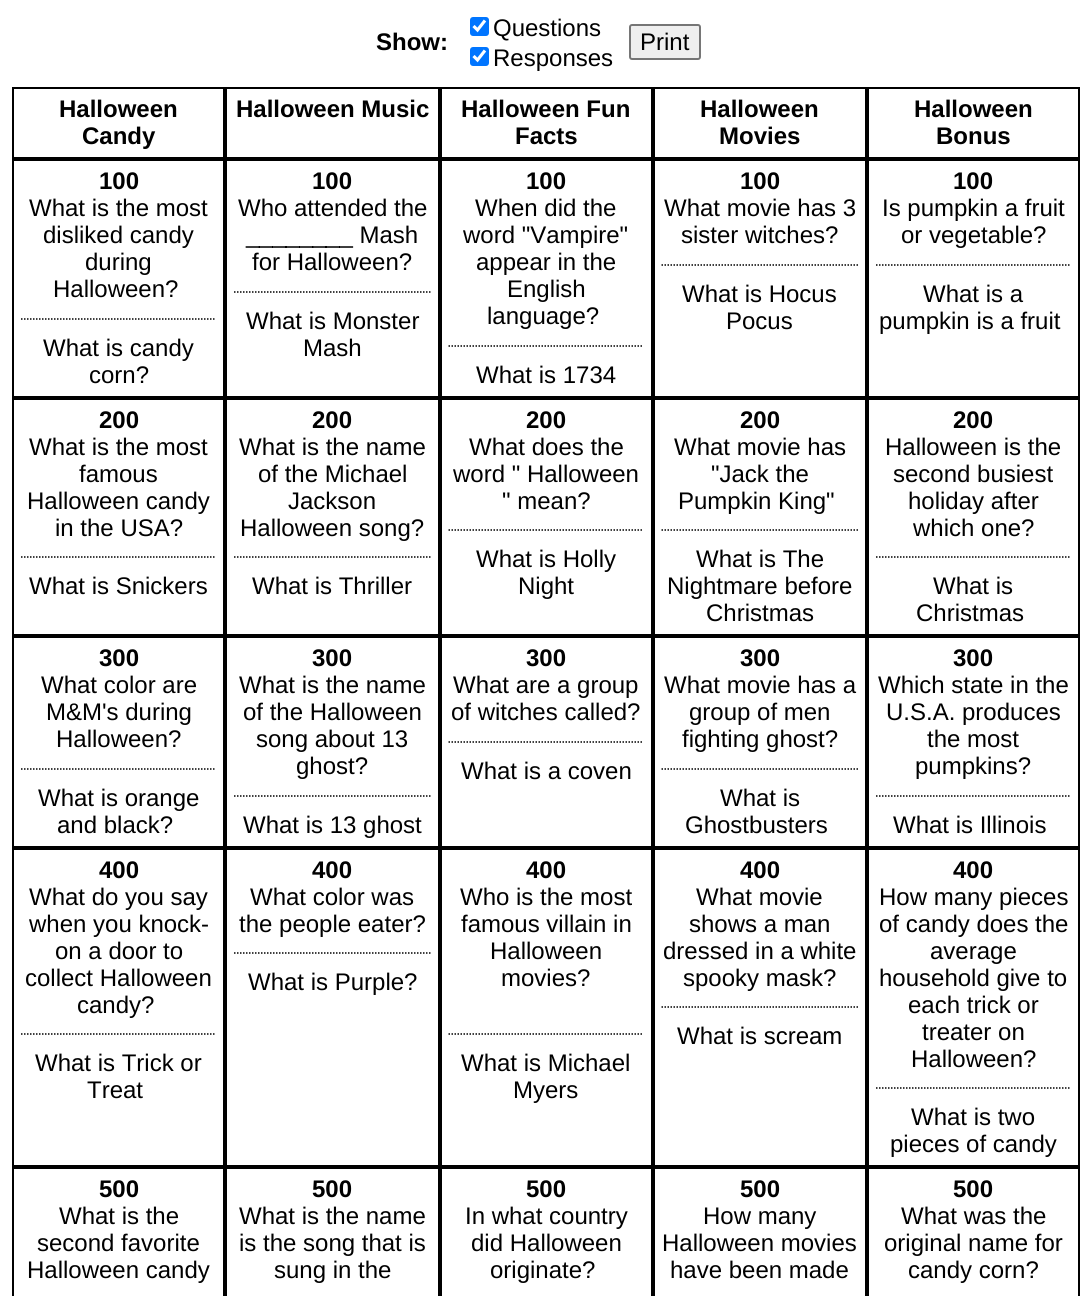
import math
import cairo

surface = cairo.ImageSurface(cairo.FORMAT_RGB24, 1092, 1296)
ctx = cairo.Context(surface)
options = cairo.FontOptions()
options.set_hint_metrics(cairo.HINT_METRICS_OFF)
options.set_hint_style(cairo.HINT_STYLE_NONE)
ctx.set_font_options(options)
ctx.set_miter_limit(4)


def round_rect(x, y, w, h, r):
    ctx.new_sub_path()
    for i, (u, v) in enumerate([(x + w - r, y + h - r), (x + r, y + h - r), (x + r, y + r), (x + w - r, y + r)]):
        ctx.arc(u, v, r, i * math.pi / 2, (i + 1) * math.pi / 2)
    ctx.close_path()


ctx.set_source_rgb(1, 1, 1)
ctx.paint()
ctx.select_font_face("Liberation Sans", cairo.FONT_SLANT_NORMAL, cairo.FONT_WEIGHT_BOLD)
ctx.set_font_size(24)
ctx.set_source_rgb(0, 0, 0)
ctx.move_to(376, 50)
ctx.show_text("Show:")
ctx.set_source_rgb(0, 0.459, 1)
round_rect(470, 17, 19, 19, 3)
ctx.fill()
ctx.new_path()
ctx.move_to(473.5, 26)
ctx.line_to(477.5, 30)
ctx.line_to(485, 20.5)
ctx.set_source_rgb(1, 1, 1)
ctx.set_line_width(3.1)
ctx.stroke()
ctx.select_font_face("Liberation Sans")
ctx.set_source_rgb(0, 0, 0)
ctx.move_to(493, 36)
ctx.show_text("Questions")
ctx.set_source_rgb(0, 0.459, 1)
round_rect(470, 47, 19, 19, 3)
ctx.fill()
ctx.new_path()
ctx.move_to(473.5, 56)
ctx.line_to(477.5, 60)
ctx.line_to(485, 50.5)
ctx.set_source_rgb(1, 1, 1)
ctx.stroke()
ctx.set_source_rgb(0, 0, 0)
ctx.move_to(493, 66)
ctx.show_text("Responses")
ctx.set_source_rgb(0.937, 0.937, 0.937)
round_rect(630, 25, 70, 34, 2)
ctx.fill_preserve()
ctx.set_source_rgb(0.463, 0.463, 0.463)
ctx.set_line_width(2)
ctx.stroke()
ctx.set_source_rgb(0, 0, 0)
ctx.move_to(640, 50)
ctx.show_text("Print")
ctx.rectangle(13, 88, 211, 70)
ctx.stroke()
ctx.select_font_face("Liberation Sans", cairo.FONT_SLANT_NORMAL, cairo.FONT_WEIGHT_BOLD)
ctx.move_to(59, 117)
ctx.show_text("Halloween")
ctx.move_to(82, 144)
ctx.show_text("Candy")
ctx.rectangle(226, 88, 213, 70)
ctx.stroke()
ctx.move_to(236, 117)
ctx.show_text("Halloween Music")
ctx.rectangle(441, 88, 211, 70)
ctx.stroke()
ctx.move_to(461, 117)
ctx.show_text("Halloween Fun")
ctx.move_to(515, 144)
ctx.show_text("Facts")
ctx.rectangle(654, 88, 212, 70)
ctx.stroke()
ctx.move_to(700, 117)
ctx.show_text("Halloween")
ctx.move_to(719, 144)
ctx.show_text("Movies")
ctx.rectangle(868, 88, 211, 70)
ctx.stroke()
ctx.move_to(914, 117)
ctx.show_text("Halloween")
ctx.move_to(936, 144)
ctx.show_text("Bonus")
ctx.rectangle(13, 160, 211, 237)
ctx.stroke()
ctx.move_to(99, 189)
ctx.show_text("100")
ctx.select_font_face("Liberation Sans")
ctx.move_to(29, 216)
ctx.show_text("What is the most")
ctx.move_to(43, 243)
ctx.show_text("disliked candy")
ctx.move_to(85, 270)
ctx.show_text("during")
ctx.move_to(53, 297)
ctx.show_text("Halloween?")
ctx.new_path()
ctx.move_to(21, 319)
ctx.line_to(216, 319)
ctx.set_line_width(1.5)
ctx.set_dash([1.5, 1.5])
ctx.stroke()
ctx.move_to(43, 356)
ctx.show_text("What is candy")
ctx.move_to(89, 383)
ctx.show_text("corn?")
ctx.rectangle(226, 160, 213, 237)
ctx.set_line_width(2)
ctx.set_dash([])
ctx.stroke()
ctx.select_font_face("Liberation Sans", cairo.FONT_SLANT_NORMAL, cairo.FONT_WEIGHT_BOLD)
ctx.move_to(312, 189)
ctx.show_text("100")
ctx.select_font_face("Liberation Sans")
ctx.move_to(238, 216)
ctx.show_text("Who attended the")
ctx.move_to(246, 243)
ctx.show_text("________ Mash")
ctx.move_to(252, 270)
ctx.show_text("for Halloween?")
ctx.new_path()
ctx.move_to(234, 292)
ctx.line_to(430.5, 292)
ctx.set_line_width(1.5)
ctx.set_dash([1.5, 1.5])
ctx.stroke()
ctx.move_to(246, 329)
ctx.show_text("What is Monster")
ctx.move_to(303, 356)
ctx.show_text("Mash")
ctx.rectangle(441, 160, 211, 237)
ctx.set_line_width(2)
ctx.set_dash([])
ctx.stroke()
ctx.select_font_face("Liberation Sans", cairo.FONT_SLANT_NORMAL, cairo.FONT_WEIGHT_BOLD)
ctx.move_to(526, 189)
ctx.show_text("100")
ctx.select_font_face("Liberation Sans")
ctx.move_to(475, 216)
ctx.show_text("When did the")
ctx.move_to(463, 243)
ctx.show_text("word \"Vampire\"")
ctx.move_to(476, 270)
ctx.show_text("appear in the")
ctx.move_to(507, 297)
ctx.show_text("English")
ctx.move_to(487, 324)
ctx.show_text("language?")
ctx.new_path()
ctx.move_to(448.5, 346)
ctx.line_to(643.5, 346)
ctx.set_line_width(1.5)
ctx.set_dash([1.5, 1.5])
ctx.stroke()
ctx.move_to(476, 383)
ctx.show_text("What is 1734")
ctx.rectangle(654, 160, 212, 237)
ctx.set_line_width(2)
ctx.set_dash([])
ctx.stroke()
ctx.select_font_face("Liberation Sans", cairo.FONT_SLANT_NORMAL, cairo.FONT_WEIGHT_BOLD)
ctx.move_to(740, 189)
ctx.show_text("100")
ctx.select_font_face("Liberation Sans")
ctx.move_to(664, 216)
ctx.show_text("What movie has 3")
ctx.move_to(681, 243)
ctx.show_text("sister witches?")
ctx.new_path()
ctx.move_to(661.5, 265)
ctx.line_to(858, 265)
ctx.set_line_width(1.5)
ctx.set_dash([1.5, 1.5])
ctx.stroke()
ctx.move_to(682, 302)
ctx.show_text("What is Hocus")
ctx.move_to(726, 329)
ctx.show_text("Pocus")
ctx.rectangle(868, 160, 211, 237)
ctx.set_line_width(2)
ctx.set_dash([])
ctx.stroke()
ctx.select_font_face("Liberation Sans", cairo.FONT_SLANT_NORMAL, cairo.FONT_WEIGHT_BOLD)
ctx.move_to(953, 189)
ctx.show_text("100")
ctx.select_font_face("Liberation Sans")
ctx.move_to(882, 216)
ctx.show_text("Is pumpkin a fruit")
ctx.move_to(901, 243)
ctx.show_text("or vegetable?")
ctx.new_path()
ctx.move_to(876, 265)
ctx.line_to(1071, 265)
ctx.set_line_width(1.5)
ctx.set_dash([1.5, 1.5])
ctx.stroke()
ctx.move_to(923, 302)
ctx.show_text("What is a")
ctx.move_to(879, 329)
ctx.show_text("pumpkin is a fruit")
ctx.rectangle(13, 399, 211, 236)
ctx.set_line_width(2)
ctx.set_dash([])
ctx.stroke()
ctx.select_font_face("Liberation Sans", cairo.FONT_SLANT_NORMAL, cairo.FONT_WEIGHT_BOLD)
ctx.move_to(99, 428)
ctx.show_text("200")
ctx.select_font_face("Liberation Sans")
ctx.move_to(29, 455)
ctx.show_text("What is the most")
ctx.move_to(79, 482)
ctx.show_text("famous")
ctx.move_to(27, 509)
ctx.show_text("Halloween candy")
ctx.move_to(55, 536)
ctx.show_text("in the USA?")
ctx.new_path()
ctx.move_to(21, 557)
ctx.line_to(216, 557)
ctx.set_line_width(1.5)
ctx.set_dash([1.5, 1.5])
ctx.stroke()
ctx.move_to(29, 594)
ctx.show_text("What is Snickers")
ctx.rectangle(226, 399, 213, 236)
ctx.set_line_width(2)
ctx.set_dash([])
ctx.stroke()
ctx.select_font_face("Liberation Sans", cairo.FONT_SLANT_NORMAL, cairo.FONT_WEIGHT_BOLD)
ctx.move_to(312, 428)
ctx.show_text("200")
ctx.select_font_face("Liberation Sans")
ctx.move_to(239, 455)
ctx.show_text("What is the name")
ctx.move_to(258, 482)
ctx.show_text("of the Michael")
ctx.move_to(288, 509)
ctx.show_text("Jackson")
ctx.move_to(240, 536)
ctx.show_text("Halloween song?")
ctx.new_path()
ctx.move_to(234, 557)
ctx.line_to(430.5, 557)
ctx.set_line_width(1.5)
ctx.set_dash([1.5, 1.5])
ctx.stroke()
ctx.move_to(252, 594)
ctx.show_text("What is Thriller")
ctx.rectangle(441, 399, 211, 236)
ctx.set_line_width(2)
ctx.set_dash([])
ctx.stroke()
ctx.select_font_face("Liberation Sans", cairo.FONT_SLANT_NORMAL, cairo.FONT_WEIGHT_BOLD)
ctx.move_to(526, 428)
ctx.show_text("200")
ctx.select_font_face("Liberation Sans")
ctx.move_to(469, 455)
ctx.show_text("What does the")
ctx.move_to(453, 482)
ctx.show_text("word \" Halloween")
ctx.move_to(502, 509)
ctx.show_text("\" mean?")
ctx.new_path()
ctx.move_to(448.5, 530)
ctx.line_to(643.5, 530)
ctx.set_line_width(1.5)
ctx.set_dash([1.5, 1.5])
ctx.stroke()
ctx.move_to(476, 567)
ctx.show_text("What is Holly")
ctx.move_to(518, 594)
ctx.show_text("Night")
ctx.rectangle(654, 399, 212, 236)
ctx.set_line_width(2)
ctx.set_dash([])
ctx.stroke()
ctx.select_font_face("Liberation Sans", cairo.FONT_SLANT_NORMAL, cairo.FONT_WEIGHT_BOLD)
ctx.move_to(740, 428)
ctx.show_text("200")
ctx.select_font_face("Liberation Sans")
ctx.move_to(674, 455)
ctx.show_text("What movie has")
ctx.move_to(711, 482)
ctx.show_text("\"Jack the")
ctx.move_to(678, 509)
ctx.show_text("Pumpkin King\"")
ctx.new_path()
ctx.move_to(661.5, 530)
ctx.line_to(858, 530)
ctx.set_line_width(1.5)
ctx.set_dash([1.5, 1.5])
ctx.stroke()
ctx.move_to(696, 567)
ctx.show_text("What is The")
ctx.move_to(667, 594)
ctx.show_text("Nightmare before")
ctx.move_to(706, 621)
ctx.show_text("Christmas")
ctx.rectangle(868, 399, 211, 236)
ctx.set_line_width(2)
ctx.set_dash([])
ctx.stroke()
ctx.select_font_face("Liberation Sans", cairo.FONT_SLANT_NORMAL, cairo.FONT_WEIGHT_BOLD)
ctx.move_to(953, 428)
ctx.show_text("200")
ctx.select_font_face("Liberation Sans")
ctx.move_to(885, 455)
ctx.show_text("Halloween is the")
ctx.move_to(893, 482)
ctx.show_text("second busiest")
ctx.move_to(908, 509)
ctx.show_text("holiday after")
ctx.move_to(913, 536)
ctx.show_text("which one?")
ctx.new_path()
ctx.move_to(876, 557)
ctx.line_to(1071, 557)
ctx.set_line_width(1.5)
ctx.set_dash([1.5, 1.5])
ctx.stroke()
ctx.move_to(933, 594)
ctx.show_text("What is")
ctx.move_to(916, 621)
ctx.show_text("Christmas")
ctx.rectangle(13, 637, 211, 210)
ctx.set_line_width(2)
ctx.set_dash([])
ctx.stroke()
ctx.select_font_face("Liberation Sans", cairo.FONT_SLANT_NORMAL, cairo.FONT_WEIGHT_BOLD)
ctx.move_to(99, 666)
ctx.show_text("300")
ctx.select_font_face("Liberation Sans")
ctx.move_to(41, 693)
ctx.show_text("What color are")
ctx.move_to(46, 720)
ctx.show_text("M&M's during")
ctx.move_to(56, 747)
ctx.show_text("Halloween?")
ctx.new_path()
ctx.move_to(21, 769)
ctx.line_to(216, 769)
ctx.set_line_width(1.5)
ctx.set_dash([1.5, 1.5])
ctx.stroke()
ctx.move_to(38, 806)
ctx.show_text("What is orange")
ctx.move_to(57, 833)
ctx.show_text("and black?")
ctx.rectangle(226, 637, 213, 210)
ctx.set_line_width(2)
ctx.set_dash([])
ctx.stroke()
ctx.select_font_face("Liberation Sans", cairo.FONT_SLANT_NORMAL, cairo.FONT_WEIGHT_BOLD)
ctx.move_to(312, 666)
ctx.show_text("300")
ctx.select_font_face("Liberation Sans")
ctx.move_to(239, 693)
ctx.show_text("What is the name")
ctx.move_to(243, 720)
ctx.show_text("of the Halloween")
ctx.move_to(256, 747)
ctx.show_text("song about 13")
ctx.move_to(296, 774)
ctx.show_text("ghost?")
ctx.new_path()
ctx.move_to(234, 796)
ctx.line_to(430.5, 796)
ctx.set_line_width(1.5)
ctx.set_dash([1.5, 1.5])
ctx.stroke()
ctx.move_to(243, 833)
ctx.show_text("What is 13 ghost")
ctx.rectangle(441, 637, 211, 210)
ctx.set_line_width(2)
ctx.set_dash([])
ctx.stroke()
ctx.select_font_face("Liberation Sans", cairo.FONT_SLANT_NORMAL, cairo.FONT_WEIGHT_BOLD)
ctx.move_to(526, 666)
ctx.show_text("300")
ctx.select_font_face("Liberation Sans")
ctx.move_to(453, 693)
ctx.show_text("What are a group")
ctx.move_to(451, 720)
ctx.show_text("of witches called?")
ctx.new_path()
ctx.move_to(448.5, 742)
ctx.line_to(643.5, 742)
ctx.set_line_width(1.5)
ctx.set_dash([1.5, 1.5])
ctx.stroke()
ctx.move_to(461, 779)
ctx.show_text("What is a coven")
ctx.rectangle(654, 637, 212, 210)
ctx.set_line_width(2)
ctx.set_dash([])
ctx.stroke()
ctx.select_font_face("Liberation Sans", cairo.FONT_SLANT_NORMAL, cairo.FONT_WEIGHT_BOLD)
ctx.move_to(740, 666)
ctx.show_text("300")
ctx.select_font_face("Liberation Sans")
ctx.move_to(664, 693)
ctx.show_text("What movie has a")
ctx.move_to(689, 720)
ctx.show_text("group of men")
ctx.move_to(682, 747)
ctx.show_text("fighting ghost?")
ctx.new_path()
ctx.move_to(661.5, 769)
ctx.line_to(858, 769)
ctx.set_line_width(1.5)
ctx.set_dash([1.5, 1.5])
ctx.stroke()
ctx.move_to(720, 806)
ctx.show_text("What is")
ctx.move_to(685, 833)
ctx.show_text("Ghostbusters")
ctx.rectangle(868, 637, 211, 210)
ctx.set_line_width(2)
ctx.set_dash([])
ctx.stroke()
ctx.select_font_face("Liberation Sans", cairo.FONT_SLANT_NORMAL, cairo.FONT_WEIGHT_BOLD)
ctx.move_to(953, 666)
ctx.show_text("300")
ctx.select_font_face("Liberation Sans")
ctx.move_to(878, 693)
ctx.show_text("Which state in the")
ctx.move_to(886, 720)
ctx.show_text("U.S.A. produces")
ctx.move_to(927, 747)
ctx.show_text("the most")
ctx.move_to(915, 774)
ctx.show_text("pumpkins?")
ctx.new_path()
ctx.move_to(876, 796)
ctx.line_to(1071, 796)
ctx.set_line_width(1.5)
ctx.set_dash([1.5, 1.5])
ctx.stroke()
ctx.move_to(893, 833)
ctx.show_text("What is Illinois")
ctx.rectangle(13, 849, 211, 317)
ctx.set_line_width(2)
ctx.set_dash([])
ctx.stroke()
ctx.select_font_face("Liberation Sans", cairo.FONT_SLANT_NORMAL, cairo.FONT_WEIGHT_BOLD)
ctx.move_to(99, 878)
ctx.show_text("400")
ctx.select_font_face("Liberation Sans")
ctx.move_to(29, 905)
ctx.show_text("What do you say")
ctx.move_to(29, 932)
ctx.show_text("when you knock-")
ctx.move_to(55, 959)
ctx.show_text("on a door to")
ctx.move_to(25, 986)
ctx.show_text("collect Halloween")
ctx.move_to(77, 1013)
ctx.show_text("candy?")
ctx.new_path()
ctx.move_to(21, 1034)
ctx.line_to(216, 1034)
ctx.set_line_width(1.5)
ctx.set_dash([1.5, 1.5])
ctx.stroke()
ctx.move_to(35, 1071)
ctx.show_text("What is Trick or")
ctx.move_to(87, 1098)
ctx.show_text("Treat")
ctx.rectangle(226, 849, 213, 317)
ctx.set_line_width(2)
ctx.set_dash([])
ctx.stroke()
ctx.select_font_face("Liberation Sans", cairo.FONT_SLANT_NORMAL, cairo.FONT_WEIGHT_BOLD)
ctx.move_to(312, 878)
ctx.show_text("400")
ctx.select_font_face("Liberation Sans")
ctx.move_to(250, 905)
ctx.show_text("What color was")
ctx.move_to(239, 932)
ctx.show_text("the people eater?")
ctx.new_path()
ctx.move_to(234, 953)
ctx.line_to(430.5, 953)
ctx.set_line_width(1.5)
ctx.set_dash([1.5, 1.5])
ctx.stroke()
ctx.move_to(248, 990)
ctx.show_text("What is Purple?")
ctx.rectangle(441, 849, 211, 317)
ctx.set_line_width(2)
ctx.set_dash([])
ctx.stroke()
ctx.select_font_face("Liberation Sans", cairo.FONT_SLANT_NORMAL, cairo.FONT_WEIGHT_BOLD)
ctx.move_to(526, 878)
ctx.show_text("400")
ctx.select_font_face("Liberation Sans")
ctx.move_to(460, 905)
ctx.show_text("Who is the most")
ctx.move_to(461, 932)
ctx.show_text("famous villain in")
ctx.move_to(490, 959)
ctx.show_text("Halloween")
ctx.move_to(501, 986)
ctx.show_text("movies?")
ctx.new_path()
ctx.move_to(448.5, 1034)
ctx.line_to(643.5, 1034)
ctx.set_line_width(1.5)
ctx.set_dash([1.5, 1.5])
ctx.stroke()
ctx.move_to(461, 1071)
ctx.show_text("What is Michael")
ctx.move_to(513, 1098)
ctx.show_text("Myers")
ctx.rectangle(654, 849, 212, 317)
ctx.set_line_width(2)
ctx.set_dash([])
ctx.stroke()
ctx.select_font_face("Liberation Sans", cairo.FONT_SLANT_NORMAL, cairo.FONT_WEIGHT_BOLD)
ctx.move_to(740, 878)
ctx.show_text("400")
ctx.select_font_face("Liberation Sans")
ctx.move_to(696, 905)
ctx.show_text("What movie")
ctx.move_to(689, 932)
ctx.show_text("shows a man")
ctx.move_to(663, 959)
ctx.show_text("dressed in a white")
ctx.move_to(683, 986)
ctx.show_text("spooky mask?")
ctx.new_path()
ctx.move_to(661.5, 1007)
ctx.line_to(858, 1007)
ctx.set_line_width(1.5)
ctx.set_dash([1.5, 1.5])
ctx.stroke()
ctx.move_to(677, 1044)
ctx.show_text("What is scream")
ctx.rectangle(868, 849, 211, 317)
ctx.set_line_width(2)
ctx.set_dash([])
ctx.stroke()
ctx.select_font_face("Liberation Sans", cairo.FONT_SLANT_NORMAL, cairo.FONT_WEIGHT_BOLD)
ctx.move_to(953, 878)
ctx.show_text("400")
ctx.select_font_face("Liberation Sans")
ctx.move_to(879, 905)
ctx.show_text("How many pieces")
ctx.move_to(879, 932)
ctx.show_text("of candy does the")
ctx.move_to(930, 959)
ctx.show_text("average")
ctx.move_to(879, 986)
ctx.show_text("household give to")
ctx.move_to(908, 1013)
ctx.show_text("each trick or")
ctx.move_to(922, 1040)
ctx.show_text("treater on")
ctx.move_to(911, 1067)
ctx.show_text("Halloween?")
ctx.new_path()
ctx.move_to(876, 1088)
ctx.line_to(1071, 1088)
ctx.set_line_width(1.5)
ctx.set_dash([1.5, 1.5])
ctx.stroke()
ctx.move_to(911, 1125)
ctx.show_text("What is two")
ctx.move_to(890, 1152)
ctx.show_text("pieces of candy")
ctx.rectangle(13, 1168, 211, 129)
ctx.set_line_width(2)
ctx.set_dash([])
ctx.stroke()
ctx.select_font_face("Liberation Sans", cairo.FONT_SLANT_NORMAL, cairo.FONT_WEIGHT_BOLD)
ctx.move_to(99, 1197)
ctx.show_text("500")
ctx.select_font_face("Liberation Sans")
ctx.move_to(59, 1224)
ctx.show_text("What is the")
ctx.move_to(37, 1251)
ctx.show_text("second favorite")
ctx.move_to(27, 1278)
ctx.show_text("Halloween candy")
ctx.rectangle(226, 1168, 213, 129)
ctx.stroke()
ctx.select_font_face("Liberation Sans", cairo.FONT_SLANT_NORMAL, cairo.FONT_WEIGHT_BOLD)
ctx.move_to(312, 1197)
ctx.show_text("500")
ctx.select_font_face("Liberation Sans")
ctx.move_to(239, 1224)
ctx.show_text("What is the name")
ctx.move_to(239, 1251)
ctx.show_text("is the song that is")
ctx.move_to(274, 1278)
ctx.show_text("sung in the")
ctx.rectangle(441, 1168, 211, 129)
ctx.stroke()
ctx.select_font_face("Liberation Sans", cairo.FONT_SLANT_NORMAL, cairo.FONT_WEIGHT_BOLD)
ctx.move_to(526, 1197)
ctx.show_text("500")
ctx.select_font_face("Liberation Sans")
ctx.move_to(465, 1224)
ctx.show_text("In what country")
ctx.move_to(471, 1251)
ctx.show_text("did Halloween")
ctx.move_to(490, 1278)
ctx.show_text("originate?")
ctx.rectangle(654, 1168, 212, 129)
ctx.stroke()
ctx.select_font_face("Liberation Sans", cairo.FONT_SLANT_NORMAL, cairo.FONT_WEIGHT_BOLD)
ctx.move_to(740, 1197)
ctx.show_text("500")
ctx.select_font_face("Liberation Sans")
ctx.move_to(703, 1224)
ctx.show_text("How many")
ctx.move_to(662, 1251)
ctx.show_text("Halloween movies")
ctx.move_to(670, 1278)
ctx.show_text("have been made")
ctx.rectangle(868, 1168, 211, 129)
ctx.stroke()
ctx.select_font_face("Liberation Sans", cairo.FONT_SLANT_NORMAL, cairo.FONT_WEIGHT_BOLD)
ctx.move_to(953, 1197)
ctx.show_text("500")
ctx.select_font_face("Liberation Sans")
ctx.move_to(901, 1224)
ctx.show_text("What was the")
ctx.move_to(884, 1251)
ctx.show_text("original name for")
ctx.move_to(908, 1278)
ctx.show_text("candy corn?")
surface.write_to_png("page.png")
